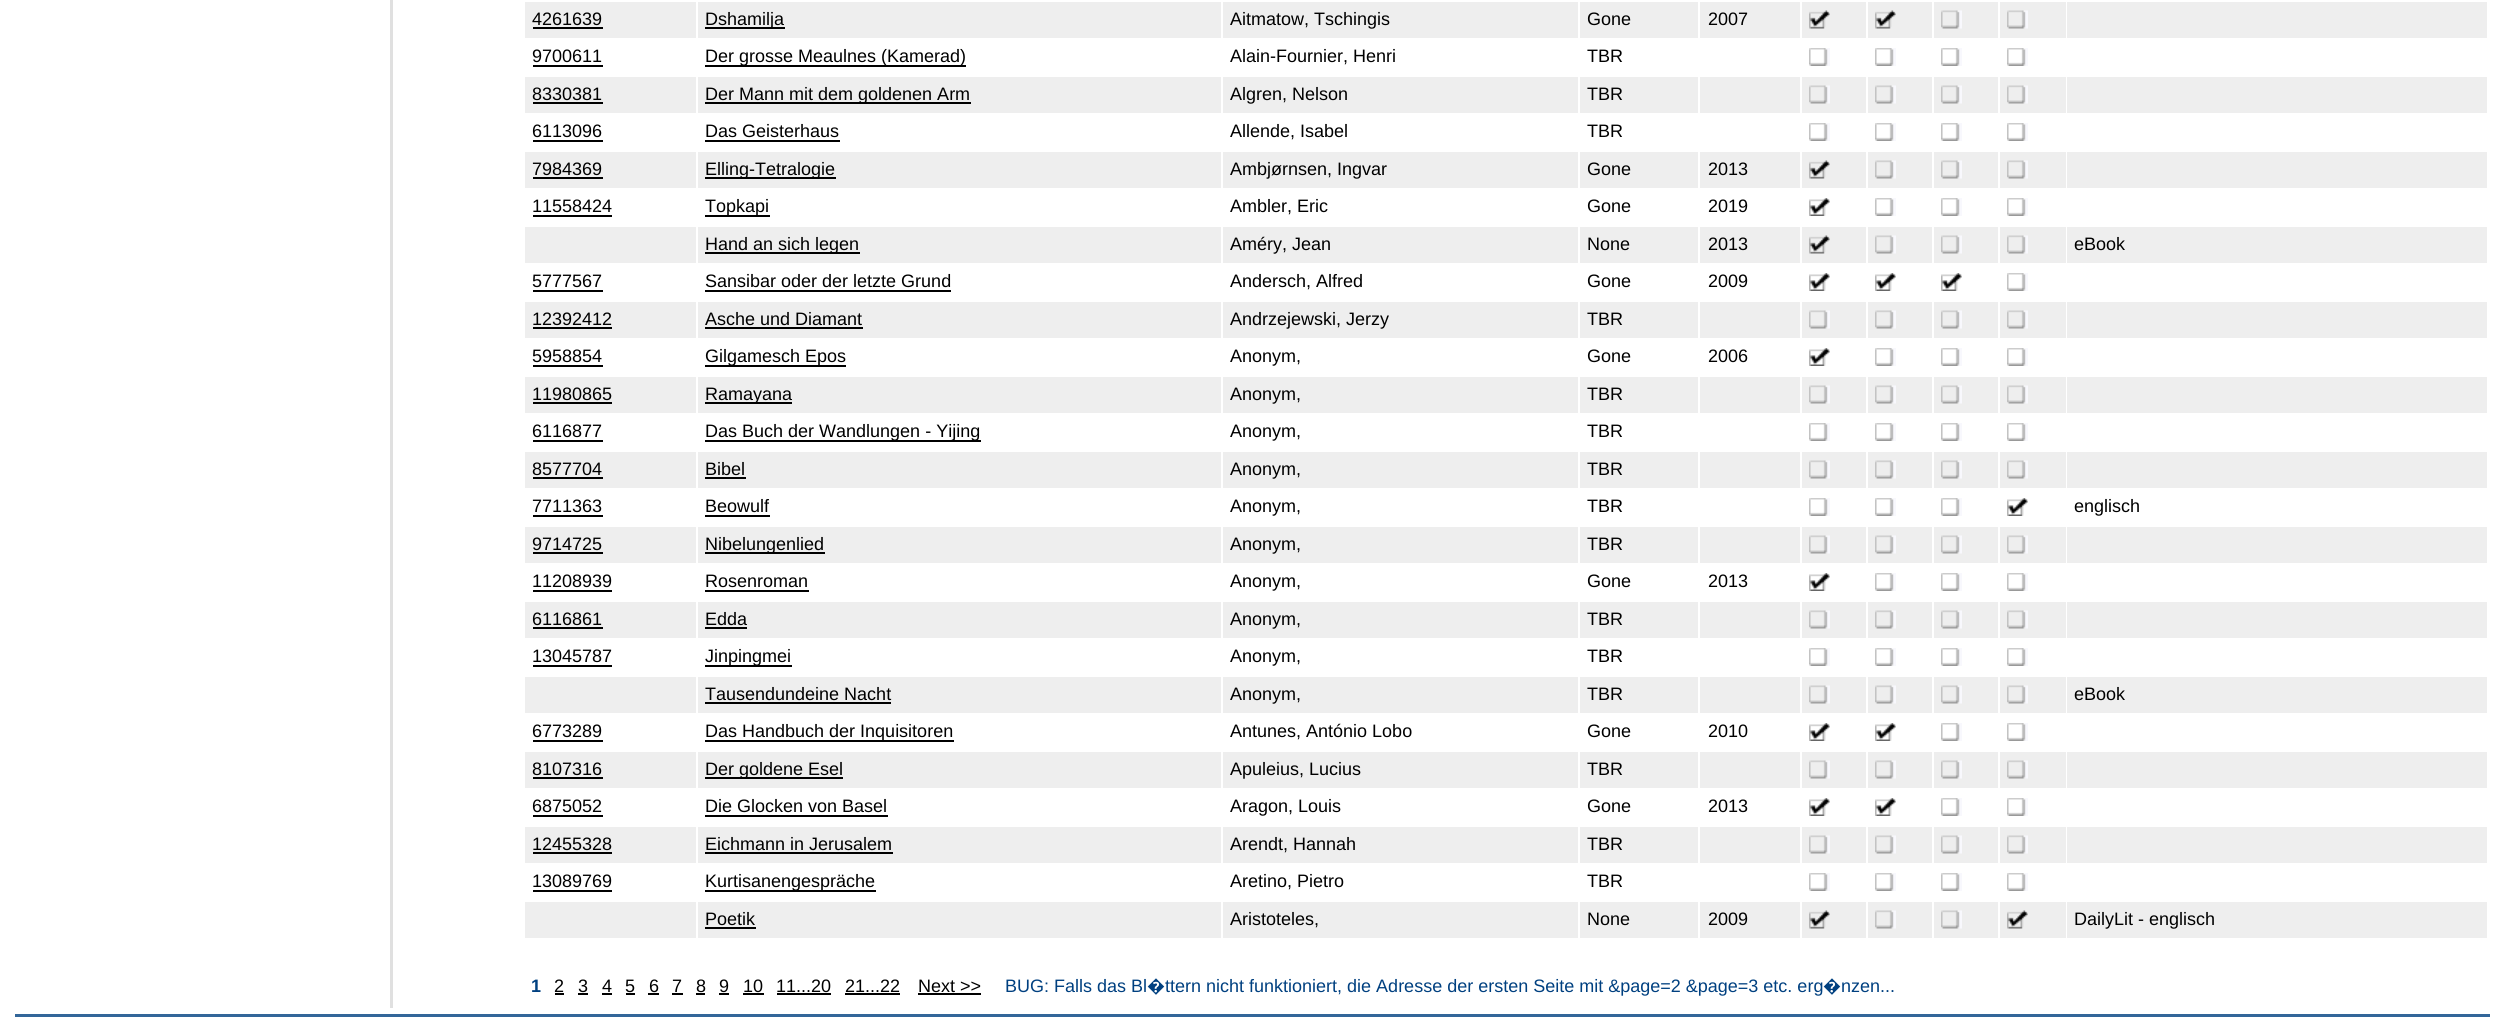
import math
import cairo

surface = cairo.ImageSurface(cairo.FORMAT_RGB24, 2505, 1032)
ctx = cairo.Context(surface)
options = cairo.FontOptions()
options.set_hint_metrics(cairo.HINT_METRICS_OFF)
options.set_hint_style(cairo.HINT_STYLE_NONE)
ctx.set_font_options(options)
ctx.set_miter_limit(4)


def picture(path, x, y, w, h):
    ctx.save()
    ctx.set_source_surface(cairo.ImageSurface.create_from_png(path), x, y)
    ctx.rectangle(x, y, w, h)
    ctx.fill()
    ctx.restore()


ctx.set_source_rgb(1, 1, 1)
ctx.paint()
ctx.set_source_rgb(0.878, 0.878, 0.878)
ctx.rectangle(390, 0, 3, 1008)
ctx.fill()
ctx.set_source_rgb(0.933, 0.933, 0.933)
ctx.rectangle(525, 2, 171, 36)
ctx.fill()
ctx.select_font_face("Liberation Sans")
ctx.set_font_size(18)
ctx.set_source_rgb(0, 0, 0)
ctx.move_to(532, 25)
ctx.show_text("4261639")
ctx.rectangle(533, 27, 70, 2)
ctx.fill()
ctx.set_source_rgb(0.933, 0.933, 0.933)
ctx.rectangle(698, 2, 523, 36)
ctx.fill()
ctx.set_source_rgb(0, 0, 0)
ctx.rectangle(705, 27, 80, 2)
ctx.fill()
ctx.move_to(705, 25)
ctx.show_text("Dshamilja")
ctx.set_source_rgb(0.933, 0.933, 0.933)
ctx.rectangle(1223, 2, 355, 36)
ctx.fill()
ctx.set_source_rgb(0, 0, 0)
ctx.move_to(1230, 25)
ctx.show_text("Aitmatow, Tschingis")
ctx.set_source_rgb(0.933, 0.933, 0.933)
ctx.rectangle(1580, 2, 118, 36)
ctx.fill()
ctx.set_source_rgb(0, 0, 0)
ctx.move_to(1587, 25)
ctx.show_text("Gone")
ctx.set_source_rgb(0.933, 0.933, 0.933)
ctx.rectangle(1700, 2, 100, 36)
ctx.fill()
ctx.set_source_rgb(0, 0, 0)
ctx.move_to(1708, 25)
ctx.show_text("2007")
ctx.set_source_rgb(0.933, 0.933, 0.933)
ctx.rectangle(1802, 2, 64, 36)
ctx.fill()
picture("img1.png", 1809, 10, 21, 19)
ctx.rectangle(1868, 2, 64, 36)
ctx.fill()
picture("img1.png", 1875, 10, 21, 19)
ctx.rectangle(1934, 2, 64, 36)
ctx.fill()
picture("img2.png", 1941, 10, 21, 19)
ctx.rectangle(2000, 2, 66, 36)
ctx.fill()
picture("img2.png", 2007, 10, 21, 19)
ctx.rectangle(2067, 2, 420, 36)
ctx.fill()
ctx.set_source_rgb(0, 0, 0)
ctx.move_to(532, 62)
ctx.show_text("9700611")
ctx.rectangle(533, 65, 70, 2)
ctx.fill()
ctx.rectangle(705, 65, 261, 2)
ctx.fill()
ctx.move_to(705, 62)
ctx.show_text("Der grosse Meaulnes (Kamerad)")
ctx.move_to(1230, 62)
ctx.show_text("Alain-Fournier, Henri")
ctx.move_to(1587, 62)
ctx.show_text("TBR")
picture("img3.png", 1809, 48, 21, 18)
picture("img3.png", 1875, 48, 21, 18)
picture("img3.png", 1941, 48, 21, 18)
picture("img3.png", 2007, 48, 21, 18)
ctx.set_source_rgb(0.933, 0.933, 0.933)
ctx.rectangle(525, 77, 171, 36)
ctx.fill()
ctx.set_source_rgb(0, 0, 0)
ctx.move_to(532, 100)
ctx.show_text("8330381")
ctx.rectangle(533, 102, 70, 2)
ctx.fill()
ctx.set_source_rgb(0.933, 0.933, 0.933)
ctx.rectangle(698, 77, 523, 36)
ctx.fill()
ctx.set_source_rgb(0, 0, 0)
ctx.rectangle(705, 102, 266, 2)
ctx.fill()
ctx.move_to(705, 100)
ctx.show_text("Der Mann mit dem goldenen Arm")
ctx.set_source_rgb(0.933, 0.933, 0.933)
ctx.rectangle(1223, 77, 355, 36)
ctx.fill()
ctx.set_source_rgb(0, 0, 0)
ctx.move_to(1230, 100)
ctx.show_text("Algren, Nelson")
ctx.set_source_rgb(0.933, 0.933, 0.933)
ctx.rectangle(1580, 77, 118, 36)
ctx.fill()
ctx.set_source_rgb(0, 0, 0)
ctx.move_to(1587, 100)
ctx.show_text("TBR")
ctx.set_source_rgb(0.933, 0.933, 0.933)
ctx.rectangle(1700, 77, 100, 36)
ctx.fill()
ctx.rectangle(1802, 77, 64, 36)
ctx.fill()
picture("img2.png", 1809, 85, 21, 19)
ctx.rectangle(1868, 77, 64, 36)
ctx.fill()
picture("img2.png", 1875, 85, 21, 19)
ctx.rectangle(1934, 77, 64, 36)
ctx.fill()
picture("img2.png", 1941, 85, 21, 19)
ctx.rectangle(2000, 77, 66, 36)
ctx.fill()
picture("img2.png", 2007, 85, 21, 19)
ctx.rectangle(2067, 77, 420, 36)
ctx.fill()
ctx.set_source_rgb(0, 0, 0)
ctx.move_to(532, 137)
ctx.show_text("6113096")
ctx.rectangle(533, 140, 70, 2)
ctx.fill()
ctx.move_to(705, 137)
ctx.show_text("Das Geisterhaus")
ctx.rectangle(705, 140, 135, 2)
ctx.fill()
ctx.move_to(1230, 137)
ctx.show_text("Allende, Isabel")
ctx.move_to(1587, 137)
ctx.show_text("TBR")
picture("img3.png", 1809, 123, 21, 18)
picture("img3.png", 1875, 123, 21, 18)
picture("img3.png", 1941, 123, 21, 18)
picture("img3.png", 2007, 123, 21, 18)
ctx.set_source_rgb(0.933, 0.933, 0.933)
ctx.rectangle(525, 152, 171, 36)
ctx.fill()
ctx.set_source_rgb(0, 0, 0)
ctx.move_to(532, 175)
ctx.show_text("7984369")
ctx.rectangle(533, 177, 70, 2)
ctx.fill()
ctx.set_source_rgb(0.933, 0.933, 0.933)
ctx.rectangle(698, 152, 523, 36)
ctx.fill()
ctx.set_source_rgb(0, 0, 0)
ctx.rectangle(705, 177, 131, 2)
ctx.fill()
ctx.move_to(705, 175)
ctx.show_text("Elling-Tetralogie")
ctx.set_source_rgb(0.933, 0.933, 0.933)
ctx.rectangle(1223, 152, 355, 36)
ctx.fill()
ctx.set_source_rgb(0, 0, 0)
ctx.move_to(1230, 175)
ctx.show_text("Ambjørnsen, Ingvar")
ctx.set_source_rgb(0.933, 0.933, 0.933)
ctx.rectangle(1580, 152, 118, 36)
ctx.fill()
ctx.set_source_rgb(0, 0, 0)
ctx.move_to(1587, 175)
ctx.show_text("Gone")
ctx.set_source_rgb(0.933, 0.933, 0.933)
ctx.rectangle(1700, 152, 100, 36)
ctx.fill()
ctx.set_source_rgb(0, 0, 0)
ctx.move_to(1708, 175)
ctx.show_text("2013")
ctx.set_source_rgb(0.933, 0.933, 0.933)
ctx.rectangle(1802, 152, 64, 36)
ctx.fill()
picture("img1.png", 1809, 160, 21, 19)
ctx.rectangle(1868, 152, 64, 36)
ctx.fill()
picture("img2.png", 1875, 160, 21, 19)
ctx.rectangle(1934, 152, 64, 36)
ctx.fill()
picture("img2.png", 1941, 160, 21, 19)
ctx.rectangle(2000, 152, 66, 36)
ctx.fill()
picture("img2.png", 2007, 160, 21, 19)
ctx.rectangle(2067, 152, 420, 36)
ctx.fill()
ctx.set_source_rgb(0, 0, 0)
ctx.move_to(532, 212)
ctx.show_text("11558424")
ctx.rectangle(533, 215, 79, 2)
ctx.fill()
ctx.rectangle(705, 215, 65, 2)
ctx.fill()
ctx.move_to(705, 212)
ctx.show_text("Topkapi")
ctx.move_to(1230, 212)
ctx.show_text("Ambler, Eric")
ctx.move_to(1587, 212)
ctx.show_text("Gone")
ctx.move_to(1708, 212)
ctx.show_text("2019")
picture("img4.png", 1809, 198, 21, 18)
picture("img3.png", 1875, 198, 21, 18)
picture("img3.png", 1941, 198, 21, 18)
picture("img3.png", 2007, 198, 21, 18)
ctx.set_source_rgb(0.933, 0.933, 0.933)
ctx.rectangle(525, 227, 171, 36)
ctx.fill()
ctx.rectangle(698, 227, 523, 36)
ctx.fill()
ctx.set_source_rgb(0, 0, 0)
ctx.rectangle(705, 252, 155, 2)
ctx.fill()
ctx.move_to(705, 250)
ctx.show_text("Hand an sich legen")
ctx.set_source_rgb(0.933, 0.933, 0.933)
ctx.rectangle(1223, 227, 355, 36)
ctx.fill()
ctx.set_source_rgb(0, 0, 0)
ctx.move_to(1230, 250)
ctx.show_text("Améry, Jean")
ctx.set_source_rgb(0.933, 0.933, 0.933)
ctx.rectangle(1580, 227, 118, 36)
ctx.fill()
ctx.set_source_rgb(0, 0, 0)
ctx.move_to(1587, 250)
ctx.show_text("None")
ctx.set_source_rgb(0.933, 0.933, 0.933)
ctx.rectangle(1700, 227, 100, 36)
ctx.fill()
ctx.set_source_rgb(0, 0, 0)
ctx.move_to(1708, 250)
ctx.show_text("2013")
ctx.set_source_rgb(0.933, 0.933, 0.933)
ctx.rectangle(1802, 227, 64, 36)
ctx.fill()
picture("img1.png", 1809, 235, 21, 19)
ctx.rectangle(1868, 227, 64, 36)
ctx.fill()
picture("img2.png", 1875, 235, 21, 19)
ctx.rectangle(1934, 227, 64, 36)
ctx.fill()
picture("img2.png", 1941, 235, 21, 19)
ctx.rectangle(2000, 227, 66, 36)
ctx.fill()
picture("img2.png", 2007, 235, 21, 19)
ctx.rectangle(2067, 227, 420, 36)
ctx.fill()
ctx.set_source_rgb(0, 0, 0)
ctx.move_to(2074, 250)
ctx.show_text("eBook")
ctx.move_to(532, 287)
ctx.show_text("5777567")
ctx.rectangle(533, 290, 70, 2)
ctx.fill()
ctx.move_to(705, 287)
ctx.show_text("Sansibar oder der letzte Grund")
ctx.rectangle(705, 290, 246, 2)
ctx.fill()
ctx.move_to(1230, 287)
ctx.show_text("Andersch, Alfred")
ctx.move_to(1587, 287)
ctx.show_text("Gone")
ctx.move_to(1708, 287)
ctx.show_text("2009")
picture("img4.png", 1809, 273, 21, 18)
picture("img4.png", 1875, 273, 21, 18)
picture("img4.png", 1941, 273, 21, 18)
picture("img3.png", 2007, 273, 21, 18)
ctx.set_source_rgb(0.933, 0.933, 0.933)
ctx.rectangle(525, 302, 171, 36)
ctx.fill()
ctx.set_source_rgb(0, 0, 0)
ctx.move_to(532, 325)
ctx.show_text("12392412")
ctx.rectangle(533, 327, 79, 2)
ctx.fill()
ctx.set_source_rgb(0.933, 0.933, 0.933)
ctx.rectangle(698, 302, 523, 36)
ctx.fill()
ctx.set_source_rgb(0, 0, 0)
ctx.move_to(705, 325)
ctx.show_text("Asche und Diamant")
ctx.rectangle(705, 327, 158, 2)
ctx.fill()
ctx.set_source_rgb(0.933, 0.933, 0.933)
ctx.rectangle(1223, 302, 355, 36)
ctx.fill()
ctx.set_source_rgb(0, 0, 0)
ctx.move_to(1230, 325)
ctx.show_text("Andrzejewski, Jerzy")
ctx.set_source_rgb(0.933, 0.933, 0.933)
ctx.rectangle(1580, 302, 118, 36)
ctx.fill()
ctx.set_source_rgb(0, 0, 0)
ctx.move_to(1587, 325)
ctx.show_text("TBR")
ctx.set_source_rgb(0.933, 0.933, 0.933)
ctx.rectangle(1700, 302, 100, 36)
ctx.fill()
ctx.rectangle(1802, 302, 64, 36)
ctx.fill()
picture("img2.png", 1809, 310, 21, 19)
ctx.rectangle(1868, 302, 64, 36)
ctx.fill()
picture("img2.png", 1875, 310, 21, 19)
ctx.rectangle(1934, 302, 64, 36)
ctx.fill()
picture("img2.png", 1941, 310, 21, 19)
ctx.rectangle(2000, 302, 66, 36)
ctx.fill()
picture("img2.png", 2007, 310, 21, 19)
ctx.rectangle(2067, 302, 420, 36)
ctx.fill()
ctx.set_source_rgb(0, 0, 0)
ctx.move_to(532, 362)
ctx.show_text("5958854")
ctx.rectangle(533, 365, 70, 2)
ctx.fill()
ctx.rectangle(705, 365, 141, 2)
ctx.fill()
ctx.move_to(705, 362)
ctx.show_text("Gilgamesch Epos")
ctx.move_to(1230, 362)
ctx.show_text("Anonym,")
ctx.move_to(1587, 362)
ctx.show_text("Gone")
ctx.move_to(1708, 362)
ctx.show_text("2006")
picture("img4.png", 1809, 348, 21, 18)
picture("img3.png", 1875, 348, 21, 18)
picture("img3.png", 1941, 348, 21, 18)
picture("img3.png", 2007, 348, 21, 18)
ctx.set_source_rgb(0.933, 0.933, 0.933)
ctx.rectangle(525, 377, 171, 36)
ctx.fill()
ctx.set_source_rgb(0, 0, 0)
ctx.move_to(532, 400)
ctx.show_text("11980865")
ctx.rectangle(533, 402, 79, 2)
ctx.fill()
ctx.set_source_rgb(0.933, 0.933, 0.933)
ctx.rectangle(698, 377, 523, 36)
ctx.fill()
ctx.set_source_rgb(0, 0, 0)
ctx.rectangle(705, 402, 87, 2)
ctx.fill()
ctx.move_to(705, 400)
ctx.show_text("Ramayana")
ctx.set_source_rgb(0.933, 0.933, 0.933)
ctx.rectangle(1223, 377, 355, 36)
ctx.fill()
ctx.set_source_rgb(0, 0, 0)
ctx.move_to(1230, 400)
ctx.show_text("Anonym,")
ctx.set_source_rgb(0.933, 0.933, 0.933)
ctx.rectangle(1580, 377, 118, 36)
ctx.fill()
ctx.set_source_rgb(0, 0, 0)
ctx.move_to(1587, 400)
ctx.show_text("TBR")
ctx.set_source_rgb(0.933, 0.933, 0.933)
ctx.rectangle(1700, 377, 100, 36)
ctx.fill()
ctx.rectangle(1802, 377, 64, 36)
ctx.fill()
picture("img2.png", 1809, 385, 21, 19)
ctx.rectangle(1868, 377, 64, 36)
ctx.fill()
picture("img2.png", 1875, 385, 21, 19)
ctx.rectangle(1934, 377, 64, 36)
ctx.fill()
picture("img2.png", 1941, 385, 21, 19)
ctx.rectangle(2000, 377, 66, 36)
ctx.fill()
picture("img2.png", 2007, 385, 21, 19)
ctx.rectangle(2067, 377, 420, 36)
ctx.fill()
ctx.set_source_rgb(0, 0, 0)
ctx.move_to(532, 437)
ctx.show_text("6116877")
ctx.rectangle(533, 440, 70, 2)
ctx.fill()
ctx.rectangle(705, 440, 276, 2)
ctx.fill()
ctx.move_to(705, 437)
ctx.show_text("Das Buch der Wandlungen - Yijing")
ctx.move_to(1230, 437)
ctx.show_text("Anonym,")
ctx.move_to(1587, 437)
ctx.show_text("TBR")
picture("img3.png", 1809, 423, 21, 18)
picture("img3.png", 1875, 423, 21, 18)
picture("img3.png", 1941, 423, 21, 18)
picture("img3.png", 2007, 423, 21, 18)
ctx.set_source_rgb(0.933, 0.933, 0.933)
ctx.rectangle(525, 452, 171, 36)
ctx.fill()
ctx.set_source_rgb(0, 0, 0)
ctx.move_to(532, 475)
ctx.show_text("8577704")
ctx.rectangle(533, 477, 70, 2)
ctx.fill()
ctx.set_source_rgb(0.933, 0.933, 0.933)
ctx.rectangle(698, 452, 523, 36)
ctx.fill()
ctx.set_source_rgb(0, 0, 0)
ctx.move_to(705, 475)
ctx.show_text("Bibel")
ctx.rectangle(705, 477, 41, 2)
ctx.fill()
ctx.set_source_rgb(0.933, 0.933, 0.933)
ctx.rectangle(1223, 452, 355, 36)
ctx.fill()
ctx.set_source_rgb(0, 0, 0)
ctx.move_to(1230, 475)
ctx.show_text("Anonym,")
ctx.set_source_rgb(0.933, 0.933, 0.933)
ctx.rectangle(1580, 452, 118, 36)
ctx.fill()
ctx.set_source_rgb(0, 0, 0)
ctx.move_to(1587, 475)
ctx.show_text("TBR")
ctx.set_source_rgb(0.933, 0.933, 0.933)
ctx.rectangle(1700, 452, 100, 36)
ctx.fill()
ctx.rectangle(1802, 452, 64, 36)
ctx.fill()
picture("img2.png", 1809, 460, 21, 19)
ctx.rectangle(1868, 452, 64, 36)
ctx.fill()
picture("img2.png", 1875, 460, 21, 19)
ctx.rectangle(1934, 452, 64, 36)
ctx.fill()
picture("img2.png", 1941, 460, 21, 19)
ctx.rectangle(2000, 452, 66, 36)
ctx.fill()
picture("img2.png", 2007, 460, 21, 19)
ctx.rectangle(2067, 452, 420, 36)
ctx.fill()
ctx.set_source_rgb(0, 0, 0)
ctx.move_to(532, 512)
ctx.show_text("7711363")
ctx.rectangle(533, 515, 70, 2)
ctx.fill()
ctx.move_to(705, 512)
ctx.show_text("Beowulf")
ctx.rectangle(705, 515, 65, 2)
ctx.fill()
ctx.move_to(1230, 512)
ctx.show_text("Anonym,")
ctx.move_to(1587, 512)
ctx.show_text("TBR")
picture("img3.png", 1809, 498, 21, 18)
picture("img3.png", 1875, 498, 21, 18)
picture("img3.png", 1941, 498, 21, 18)
picture("img4.png", 2007, 498, 21, 18)
ctx.move_to(2074, 512)
ctx.show_text("englisch")
ctx.set_source_rgb(0.933, 0.933, 0.933)
ctx.rectangle(525, 527, 171, 36)
ctx.fill()
ctx.set_source_rgb(0, 0, 0)
ctx.move_to(532, 550)
ctx.show_text("9714725")
ctx.rectangle(533, 552, 70, 2)
ctx.fill()
ctx.set_source_rgb(0.933, 0.933, 0.933)
ctx.rectangle(698, 527, 523, 36)
ctx.fill()
ctx.set_source_rgb(0, 0, 0)
ctx.rectangle(705, 552, 120, 2)
ctx.fill()
ctx.move_to(705, 550)
ctx.show_text("Nibelungenlied")
ctx.set_source_rgb(0.933, 0.933, 0.933)
ctx.rectangle(1223, 527, 355, 36)
ctx.fill()
ctx.set_source_rgb(0, 0, 0)
ctx.move_to(1230, 550)
ctx.show_text("Anonym,")
ctx.set_source_rgb(0.933, 0.933, 0.933)
ctx.rectangle(1580, 527, 118, 36)
ctx.fill()
ctx.set_source_rgb(0, 0, 0)
ctx.move_to(1587, 550)
ctx.show_text("TBR")
ctx.set_source_rgb(0.933, 0.933, 0.933)
ctx.rectangle(1700, 527, 100, 36)
ctx.fill()
ctx.rectangle(1802, 527, 64, 36)
ctx.fill()
picture("img2.png", 1809, 535, 21, 19)
ctx.rectangle(1868, 527, 64, 36)
ctx.fill()
picture("img2.png", 1875, 535, 21, 19)
ctx.rectangle(1934, 527, 64, 36)
ctx.fill()
picture("img2.png", 1941, 535, 21, 19)
ctx.rectangle(2000, 527, 66, 36)
ctx.fill()
picture("img2.png", 2007, 535, 21, 19)
ctx.rectangle(2067, 527, 420, 36)
ctx.fill()
ctx.set_source_rgb(0, 0, 0)
ctx.move_to(532, 587)
ctx.show_text("11208939")
ctx.rectangle(533, 590, 79, 2)
ctx.fill()
ctx.move_to(705, 587)
ctx.show_text("Rosenroman")
ctx.rectangle(705, 590, 104, 2)
ctx.fill()
ctx.move_to(1230, 587)
ctx.show_text("Anonym,")
ctx.move_to(1587, 587)
ctx.show_text("Gone")
ctx.move_to(1708, 587)
ctx.show_text("2013")
picture("img4.png", 1809, 573, 21, 18)
picture("img3.png", 1875, 573, 21, 18)
picture("img3.png", 1941, 573, 21, 18)
picture("img3.png", 2007, 573, 21, 18)
ctx.set_source_rgb(0.933, 0.933, 0.933)
ctx.rectangle(525, 602, 171, 36)
ctx.fill()
ctx.set_source_rgb(0, 0, 0)
ctx.move_to(532, 625)
ctx.show_text("6116861")
ctx.rectangle(533, 627, 70, 2)
ctx.fill()
ctx.set_source_rgb(0.933, 0.933, 0.933)
ctx.rectangle(698, 602, 523, 36)
ctx.fill()
ctx.set_source_rgb(0, 0, 0)
ctx.move_to(705, 625)
ctx.show_text("Edda")
ctx.rectangle(705, 627, 42, 2)
ctx.fill()
ctx.set_source_rgb(0.933, 0.933, 0.933)
ctx.rectangle(1223, 602, 355, 36)
ctx.fill()
ctx.set_source_rgb(0, 0, 0)
ctx.move_to(1230, 625)
ctx.show_text("Anonym,")
ctx.set_source_rgb(0.933, 0.933, 0.933)
ctx.rectangle(1580, 602, 118, 36)
ctx.fill()
ctx.set_source_rgb(0, 0, 0)
ctx.move_to(1587, 625)
ctx.show_text("TBR")
ctx.set_source_rgb(0.933, 0.933, 0.933)
ctx.rectangle(1700, 602, 100, 36)
ctx.fill()
ctx.rectangle(1802, 602, 64, 36)
ctx.fill()
picture("img2.png", 1809, 610, 21, 19)
ctx.rectangle(1868, 602, 64, 36)
ctx.fill()
picture("img2.png", 1875, 610, 21, 19)
ctx.rectangle(1934, 602, 64, 36)
ctx.fill()
picture("img2.png", 1941, 610, 21, 19)
ctx.rectangle(2000, 602, 66, 36)
ctx.fill()
picture("img2.png", 2007, 610, 21, 19)
ctx.rectangle(2067, 602, 420, 36)
ctx.fill()
ctx.set_source_rgb(0, 0, 0)
ctx.move_to(532, 662)
ctx.show_text("13045787")
ctx.rectangle(533, 665, 79, 2)
ctx.fill()
ctx.rectangle(705, 665, 87, 2)
ctx.fill()
ctx.move_to(705, 662)
ctx.show_text("Jinpingmei")
ctx.move_to(1230, 662)
ctx.show_text("Anonym,")
ctx.move_to(1587, 662)
ctx.show_text("TBR")
picture("img3.png", 1809, 648, 21, 18)
picture("img3.png", 1875, 648, 21, 18)
picture("img3.png", 1941, 648, 21, 18)
picture("img3.png", 2007, 648, 21, 18)
ctx.set_source_rgb(0.933, 0.933, 0.933)
ctx.rectangle(525, 677, 171, 36)
ctx.fill()
ctx.rectangle(698, 677, 523, 36)
ctx.fill()
ctx.set_source_rgb(0, 0, 0)
ctx.move_to(705, 700)
ctx.show_text("Tausendundeine Nacht")
ctx.rectangle(705, 702, 186, 2)
ctx.fill()
ctx.set_source_rgb(0.933, 0.933, 0.933)
ctx.rectangle(1223, 677, 355, 36)
ctx.fill()
ctx.set_source_rgb(0, 0, 0)
ctx.move_to(1230, 700)
ctx.show_text("Anonym,")
ctx.set_source_rgb(0.933, 0.933, 0.933)
ctx.rectangle(1580, 677, 118, 36)
ctx.fill()
ctx.set_source_rgb(0, 0, 0)
ctx.move_to(1587, 700)
ctx.show_text("TBR")
ctx.set_source_rgb(0.933, 0.933, 0.933)
ctx.rectangle(1700, 677, 100, 36)
ctx.fill()
ctx.rectangle(1802, 677, 64, 36)
ctx.fill()
picture("img2.png", 1809, 685, 21, 19)
ctx.rectangle(1868, 677, 64, 36)
ctx.fill()
picture("img2.png", 1875, 685, 21, 19)
ctx.rectangle(1934, 677, 64, 36)
ctx.fill()
picture("img2.png", 1941, 685, 21, 19)
ctx.rectangle(2000, 677, 66, 36)
ctx.fill()
picture("img2.png", 2007, 685, 21, 19)
ctx.rectangle(2067, 677, 420, 36)
ctx.fill()
ctx.set_source_rgb(0, 0, 0)
ctx.move_to(2074, 700)
ctx.show_text("eBook")
ctx.move_to(532, 737)
ctx.show_text("6773289")
ctx.rectangle(533, 740, 70, 2)
ctx.fill()
ctx.rectangle(705, 740, 249, 2)
ctx.fill()
ctx.move_to(705, 737)
ctx.show_text("Das Handbuch der Inquisitoren")
ctx.move_to(1230, 737)
ctx.show_text("Antunes, António Lobo")
ctx.move_to(1587, 737)
ctx.show_text("Gone")
ctx.move_to(1708, 737)
ctx.show_text("2010")
picture("img4.png", 1809, 723, 21, 18)
picture("img4.png", 1875, 723, 21, 18)
picture("img3.png", 1941, 723, 21, 18)
picture("img3.png", 2007, 723, 21, 18)
ctx.set_source_rgb(0.933, 0.933, 0.933)
ctx.rectangle(525, 752, 171, 36)
ctx.fill()
ctx.set_source_rgb(0, 0, 0)
ctx.move_to(532, 775)
ctx.show_text("8107316")
ctx.rectangle(533, 777, 70, 2)
ctx.fill()
ctx.set_source_rgb(0.933, 0.933, 0.933)
ctx.rectangle(698, 752, 523, 36)
ctx.fill()
ctx.set_source_rgb(0, 0, 0)
ctx.rectangle(705, 777, 138, 2)
ctx.fill()
ctx.move_to(705, 775)
ctx.show_text("Der goldene Esel")
ctx.set_source_rgb(0.933, 0.933, 0.933)
ctx.rectangle(1223, 752, 355, 36)
ctx.fill()
ctx.set_source_rgb(0, 0, 0)
ctx.move_to(1230, 775)
ctx.show_text("Apuleius, Lucius")
ctx.set_source_rgb(0.933, 0.933, 0.933)
ctx.rectangle(1580, 752, 118, 36)
ctx.fill()
ctx.set_source_rgb(0, 0, 0)
ctx.move_to(1587, 775)
ctx.show_text("TBR")
ctx.set_source_rgb(0.933, 0.933, 0.933)
ctx.rectangle(1700, 752, 100, 36)
ctx.fill()
ctx.rectangle(1802, 752, 64, 36)
ctx.fill()
picture("img2.png", 1809, 760, 21, 19)
ctx.rectangle(1868, 752, 64, 36)
ctx.fill()
picture("img2.png", 1875, 760, 21, 19)
ctx.rectangle(1934, 752, 64, 36)
ctx.fill()
picture("img2.png", 1941, 760, 21, 19)
ctx.rectangle(2000, 752, 66, 36)
ctx.fill()
picture("img2.png", 2007, 760, 21, 19)
ctx.rectangle(2067, 752, 420, 36)
ctx.fill()
ctx.set_source_rgb(0, 0, 0)
ctx.move_to(532, 812)
ctx.show_text("6875052")
ctx.rectangle(533, 815, 70, 2)
ctx.fill()
ctx.move_to(705, 812)
ctx.show_text("Die Glocken von Basel")
ctx.rectangle(705, 815, 183, 2)
ctx.fill()
ctx.move_to(1230, 812)
ctx.show_text("Aragon, Louis")
ctx.move_to(1587, 812)
ctx.show_text("Gone")
ctx.move_to(1708, 812)
ctx.show_text("2013")
picture("img4.png", 1809, 798, 21, 18)
picture("img4.png", 1875, 798, 21, 18)
picture("img3.png", 1941, 798, 21, 18)
picture("img3.png", 2007, 798, 21, 18)
ctx.set_source_rgb(0.933, 0.933, 0.933)
ctx.rectangle(525, 827, 171, 36)
ctx.fill()
ctx.set_source_rgb(0, 0, 0)
ctx.move_to(532, 850)
ctx.show_text("12455328")
ctx.rectangle(533, 852, 79, 2)
ctx.fill()
ctx.set_source_rgb(0.933, 0.933, 0.933)
ctx.rectangle(698, 827, 523, 36)
ctx.fill()
ctx.set_source_rgb(0, 0, 0)
ctx.move_to(705, 850)
ctx.show_text("Eichmann in Jerusalem")
ctx.rectangle(705, 852, 188, 2)
ctx.fill()
ctx.set_source_rgb(0.933, 0.933, 0.933)
ctx.rectangle(1223, 827, 355, 36)
ctx.fill()
ctx.set_source_rgb(0, 0, 0)
ctx.move_to(1230, 850)
ctx.show_text("Arendt, Hannah")
ctx.set_source_rgb(0.933, 0.933, 0.933)
ctx.rectangle(1580, 827, 118, 36)
ctx.fill()
ctx.set_source_rgb(0, 0, 0)
ctx.move_to(1587, 850)
ctx.show_text("TBR")
ctx.set_source_rgb(0.933, 0.933, 0.933)
ctx.rectangle(1700, 827, 100, 36)
ctx.fill()
ctx.rectangle(1802, 827, 64, 36)
ctx.fill()
picture("img2.png", 1809, 835, 21, 19)
ctx.rectangle(1868, 827, 64, 36)
ctx.fill()
picture("img2.png", 1875, 835, 21, 19)
ctx.rectangle(1934, 827, 64, 36)
ctx.fill()
picture("img2.png", 1941, 835, 21, 19)
ctx.rectangle(2000, 827, 66, 36)
ctx.fill()
picture("img2.png", 2007, 835, 21, 19)
ctx.rectangle(2067, 827, 420, 36)
ctx.fill()
ctx.set_source_rgb(0, 0, 0)
ctx.move_to(532, 887)
ctx.show_text("13089769")
ctx.rectangle(533, 890, 79, 2)
ctx.fill()
ctx.rectangle(705, 890, 171, 2)
ctx.fill()
ctx.move_to(705, 887)
ctx.show_text("Kurtisanengespräche")
ctx.move_to(1230, 887)
ctx.show_text("Aretino, Pietro")
ctx.move_to(1587, 887)
ctx.show_text("TBR")
picture("img3.png", 1809, 873, 21, 18)
picture("img3.png", 1875, 873, 21, 18)
picture("img3.png", 1941, 873, 21, 18)
picture("img3.png", 2007, 873, 21, 18)
ctx.set_source_rgb(0.933, 0.933, 0.933)
ctx.rectangle(525, 902, 171, 36)
ctx.fill()
ctx.rectangle(698, 902, 523, 36)
ctx.fill()
ctx.set_source_rgb(0, 0, 0)
ctx.move_to(705, 925)
ctx.show_text("Poetik")
ctx.rectangle(705, 927, 51, 2)
ctx.fill()
ctx.set_source_rgb(0.933, 0.933, 0.933)
ctx.rectangle(1223, 902, 355, 36)
ctx.fill()
ctx.set_source_rgb(0, 0, 0)
ctx.move_to(1230, 925)
ctx.show_text("Aristoteles,")
ctx.set_source_rgb(0.933, 0.933, 0.933)
ctx.rectangle(1580, 902, 118, 36)
ctx.fill()
ctx.set_source_rgb(0, 0, 0)
ctx.move_to(1587, 925)
ctx.show_text("None")
ctx.set_source_rgb(0.933, 0.933, 0.933)
ctx.rectangle(1700, 902, 100, 36)
ctx.fill()
ctx.set_source_rgb(0, 0, 0)
ctx.move_to(1708, 925)
ctx.show_text("2009")
ctx.set_source_rgb(0.933, 0.933, 0.933)
ctx.rectangle(1802, 902, 64, 36)
ctx.fill()
picture("img1.png", 1809, 910, 21, 19)
ctx.rectangle(1868, 902, 64, 36)
ctx.fill()
picture("img2.png", 1875, 910, 21, 19)
ctx.rectangle(1934, 902, 64, 36)
ctx.fill()
picture("img2.png", 1941, 910, 21, 19)
ctx.rectangle(2000, 902, 66, 36)
ctx.fill()
picture("img1.png", 2007, 910, 21, 19)
ctx.rectangle(2067, 902, 420, 36)
ctx.fill()
ctx.set_source_rgb(0, 0, 0)
ctx.move_to(2074, 925)
ctx.show_text("DailyLit - englisch")
ctx.select_font_face("Liberation Sans", cairo.FONT_SLANT_NORMAL, cairo.FONT_WEIGHT_BOLD)
ctx.set_source_rgb(0, 0.251, 0.502)
ctx.move_to(531, 992)
ctx.show_text("1")
ctx.select_font_face("Liberation Sans")
ctx.set_source_rgb(0, 0, 0)
ctx.move_to(554, 992)
ctx.show_text("2")
ctx.rectangle(555, 993, 9, 2)
ctx.fill()
ctx.move_to(578, 992)
ctx.show_text("3")
ctx.rectangle(578, 993, 10, 2)
ctx.fill()
ctx.move_to(602, 992)
ctx.show_text("4")
ctx.rectangle(602, 993, 10, 2)
ctx.fill()
ctx.move_to(625, 992)
ctx.show_text("5")
ctx.rectangle(626, 993, 9, 2)
ctx.fill()
ctx.move_to(649, 992)
ctx.show_text("6")
ctx.rectangle(648, 993, 11, 2)
ctx.fill()
ctx.move_to(672, 992)
ctx.show_text("7")
ctx.rectangle(672, 993, 11, 2)
ctx.fill()
ctx.move_to(696, 992)
ctx.show_text("8")
ctx.rectangle(696, 993, 9, 2)
ctx.fill()
ctx.move_to(719, 992)
ctx.show_text("9")
ctx.rectangle(719, 993, 10, 2)
ctx.fill()
ctx.move_to(743, 992)
ctx.show_text("10")
ctx.rectangle(743, 993, 21, 2)
ctx.fill()
ctx.move_to(776, 992)
ctx.show_text("11...20")
ctx.rectangle(777, 993, 54, 2)
ctx.fill()
ctx.move_to(845, 992)
ctx.show_text("21...22")
ctx.rectangle(845, 993, 55, 2)
ctx.fill()
ctx.move_to(918, 992)
ctx.show_text("Next >>")
ctx.rectangle(918, 993, 63, 2)
ctx.fill()
ctx.set_source_rgb(0, 0.251, 0.502)
ctx.move_to(1005, 992)
ctx.show_text("BUG: Falls das Bl")
ctx.select_font_face("Noto Sans")
ctx.move_to(1147, 992)
ctx.show_text("�")
ctx.select_font_face("Liberation Sans")
ctx.move_to(1165, 992)
ctx.show_text("ttern nicht funktioniert, die Adresse der ersten Seite mit &page=2 &page=3 etc. erg")
ctx.select_font_face("Noto Sans")
ctx.move_to(1823, 992)
ctx.show_text("�")
ctx.select_font_face("Liberation Sans")
ctx.move_to(1841, 992)
ctx.show_text("nzen...")
ctx.set_source_rgb(0.2, 0.4, 0.6)
ctx.rectangle(15, 1014, 2475, 3)
ctx.fill()
surface.write_to_png("page.png")
